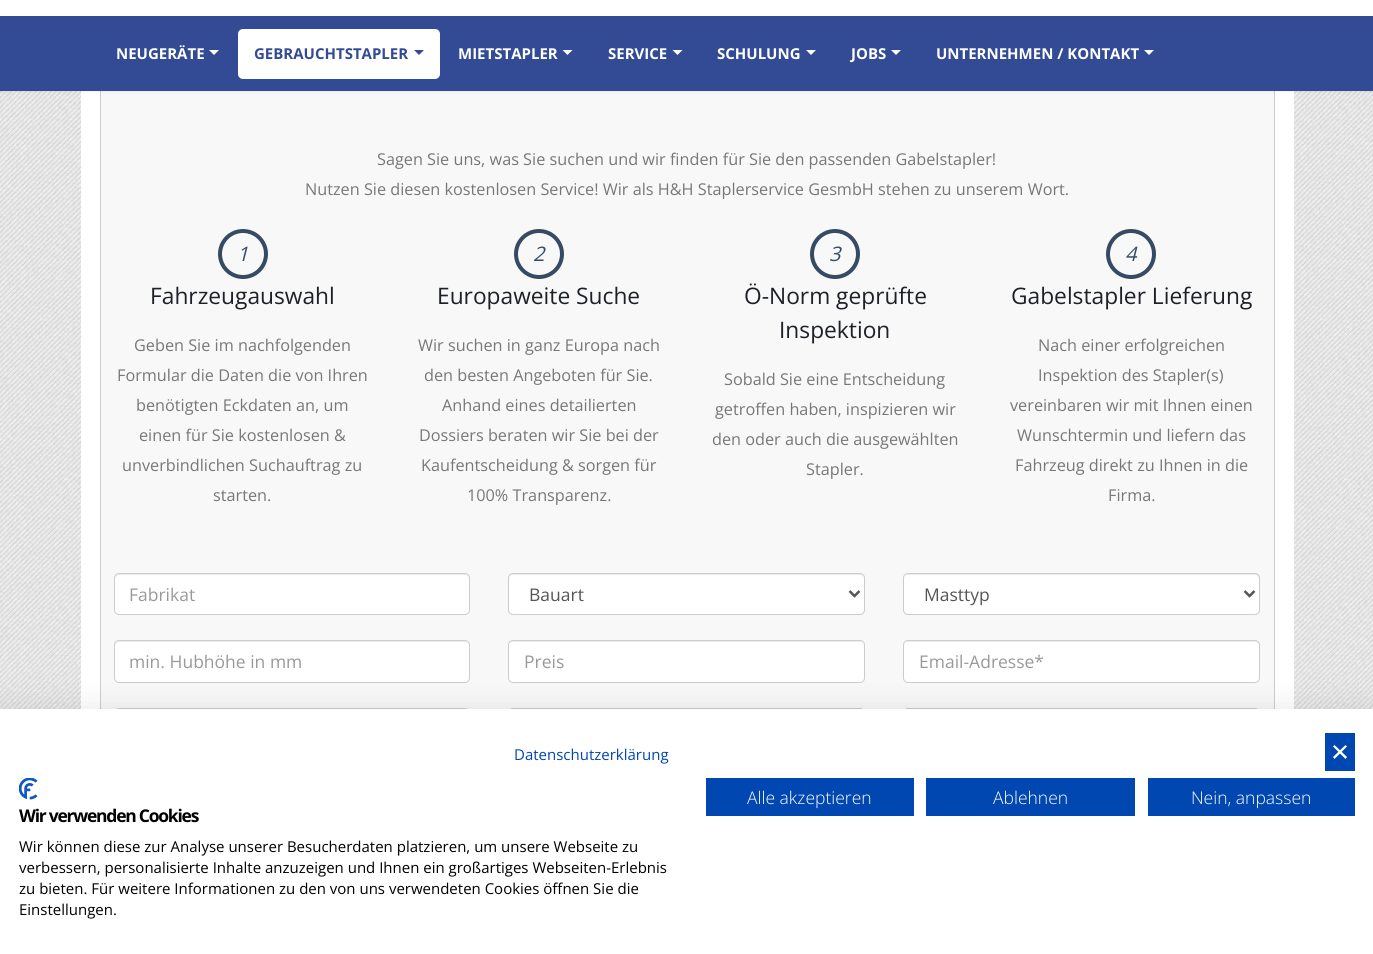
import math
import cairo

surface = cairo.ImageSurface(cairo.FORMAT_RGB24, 1373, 954)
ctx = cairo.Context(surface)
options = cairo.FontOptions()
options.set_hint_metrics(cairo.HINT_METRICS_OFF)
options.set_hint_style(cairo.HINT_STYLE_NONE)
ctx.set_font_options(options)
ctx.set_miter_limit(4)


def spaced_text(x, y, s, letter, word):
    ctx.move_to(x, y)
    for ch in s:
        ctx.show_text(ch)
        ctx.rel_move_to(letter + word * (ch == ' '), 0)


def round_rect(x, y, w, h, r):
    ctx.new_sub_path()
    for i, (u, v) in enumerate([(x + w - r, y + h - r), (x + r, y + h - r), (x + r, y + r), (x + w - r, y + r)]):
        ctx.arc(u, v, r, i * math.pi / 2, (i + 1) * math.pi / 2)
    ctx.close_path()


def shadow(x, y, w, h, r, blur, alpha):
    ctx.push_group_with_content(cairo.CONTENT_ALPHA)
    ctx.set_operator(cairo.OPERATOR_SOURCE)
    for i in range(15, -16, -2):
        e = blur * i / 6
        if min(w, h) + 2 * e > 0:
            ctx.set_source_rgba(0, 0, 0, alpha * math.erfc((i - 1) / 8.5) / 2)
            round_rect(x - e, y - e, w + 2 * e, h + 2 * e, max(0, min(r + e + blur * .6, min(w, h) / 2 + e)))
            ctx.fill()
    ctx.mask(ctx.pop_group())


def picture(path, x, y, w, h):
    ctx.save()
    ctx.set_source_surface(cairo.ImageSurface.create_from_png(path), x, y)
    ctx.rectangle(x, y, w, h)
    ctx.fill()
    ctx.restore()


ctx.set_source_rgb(1, 1, 1)
ctx.paint()
picture("img1.png", 0, 91, 1373, 618)
ctx.set_source_rgb(1, 1, 1)
ctx.rectangle(81, 91, 1213, 618)
ctx.fill()
ctx.set_source_rgb(0.969, 0.969, 0.969)
ctx.rectangle(101, 91, 1173, 618)
ctx.fill()
ctx.rectangle(100.5, 59.5, 1174, 886)
ctx.set_source_rgb(0.8, 0.8, 0.8)
ctx.set_line_width(1)
ctx.stroke()
ctx.set_source_rgb(0, 0, 0)
shadow(0, -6, 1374, 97, 0, 2, 0.1)
ctx.set_source_rgb(1, 1, 1)
ctx.rectangle(0, 0, 1373, 16)
ctx.fill()
ctx.set_source_rgb(0.196, 0.294, 0.58)
ctx.rectangle(0, 16, 1373, 75)
ctx.fill()
ctx.select_font_face("Open Sans", cairo.FONT_SLANT_NORMAL, cairo.FONT_WEIGHT_BOLD)
ctx.set_font_size(15)
ctx.set_source_rgb(1, 1, 1)
ctx.move_to(116, 59)
ctx.show_text("NEUGERÄTE")
ctx.new_path()
ctx.move_to(209, 50)
ctx.line_to(219, 50)
ctx.line_to(214, 55)
ctx.close_path()
ctx.fill()
round_rect(238, 29, 202, 50, 5)
ctx.fill()
ctx.set_source_rgb(0.196, 0.294, 0.58)
ctx.move_to(254, 59)
ctx.show_text("GEBRAUCHTSTAPLER")
ctx.new_path()
ctx.move_to(414, 50)
ctx.line_to(424, 50)
ctx.line_to(419, 55)
ctx.close_path()
ctx.fill()
ctx.set_source_rgb(1, 1, 1)
ctx.move_to(458, 59)
ctx.show_text("MIETSTAPLER")
ctx.new_path()
ctx.move_to(562.5, 50)
ctx.line_to(572.5, 50)
ctx.line_to(567.5, 55)
ctx.close_path()
ctx.fill()
ctx.move_to(608, 59)
ctx.show_text("SERVICE")
ctx.new_path()
ctx.move_to(672.5, 50)
ctx.line_to(682.5, 50)
ctx.line_to(677.5, 55)
ctx.close_path()
ctx.fill()
ctx.move_to(717, 59)
ctx.show_text("SCHULUNG")
ctx.new_path()
ctx.move_to(806, 50)
ctx.line_to(816, 50)
ctx.line_to(811, 55)
ctx.close_path()
ctx.fill()
ctx.move_to(851, 59)
ctx.show_text("JOBS")
ctx.new_path()
ctx.move_to(891, 50)
ctx.line_to(901, 50)
ctx.line_to(896, 55)
ctx.close_path()
ctx.fill()
ctx.move_to(936, 59)
ctx.show_text("UNTERNEHMEN / KONTAKT")
ctx.new_path()
ctx.move_to(1144, 50)
ctx.line_to(1154, 50)
ctx.line_to(1149, 55)
ctx.close_path()
ctx.fill()
ctx.select_font_face("Open Sans")
ctx.set_font_size(16.25)
ctx.set_source_rgb(0.467, 0.467, 0.467)
ctx.move_to(377, 165)
ctx.show_text("Sagen Sie uns, was Sie suchen und wir finden für Sie den passenden Gabelstapler!")
ctx.move_to(305, 195)
ctx.show_text("Nutzen Sie diesen kostenlosen Service! Wir als H&H Staplerservice GesmbH stehen zu unserem Wort.")
ctx.new_path()
ctx.arc(243, 254, 23, 0, 2 * math.pi)
ctx.set_source_rgb(0.208, 0.29, 0.388)
ctx.set_line_width(4)
ctx.stroke()
ctx.select_font_face("Open Sans", cairo.FONT_SLANT_ITALIC)
ctx.set_font_size(20)
ctx.move_to(237, 261)
ctx.show_text("1")
ctx.select_font_face("Open Sans")
ctx.set_font_size(22.75)
ctx.set_source_rgb(0.114, 0.129, 0.153)
ctx.move_to(150, 304)
ctx.show_text("Fahrzeugauswahl")
ctx.set_font_size(16.25)
ctx.set_source_rgb(0.467, 0.467, 0.467)
ctx.move_to(134, 351)
ctx.show_text("Geben Sie im nachfolgenden")
ctx.move_to(117, 381)
ctx.show_text("Formular die Daten die von Ihren")
ctx.move_to(136, 411)
ctx.show_text("benötigten Eckdaten an, um")
ctx.move_to(139, 441)
ctx.show_text("einen für Sie kostenlosen &")
ctx.move_to(122, 471)
ctx.show_text("unverbindlichen Suchauftrag zu")
ctx.move_to(213, 501)
ctx.show_text("starten.")
ctx.new_path()
ctx.arc(539, 254, 23, 0, 2 * math.pi)
ctx.set_source_rgb(0.208, 0.29, 0.388)
ctx.stroke()
ctx.select_font_face("Open Sans", cairo.FONT_SLANT_ITALIC)
ctx.set_font_size(20)
ctx.move_to(533, 261)
ctx.show_text("2")
ctx.select_font_face("Open Sans")
ctx.set_font_size(22.75)
ctx.set_source_rgb(0.114, 0.129, 0.153)
ctx.move_to(437, 304)
ctx.show_text("Europaweite Suche")
ctx.set_font_size(16.25)
ctx.set_source_rgb(0.467, 0.467, 0.467)
ctx.move_to(418, 351)
ctx.show_text("Wir suchen in ganz Europa nach")
ctx.move_to(424, 381)
ctx.show_text("den besten Angeboten für Sie.")
ctx.move_to(442, 411)
ctx.show_text("Anhand eines detailierten")
ctx.move_to(419, 441)
ctx.show_text("Dossiers beraten wir Sie bei der")
ctx.move_to(421, 471)
ctx.show_text("Kaufentscheidung & sorgen für")
ctx.move_to(467, 501)
ctx.show_text("100% Transparenz.")
ctx.new_path()
ctx.arc(835, 254, 23, 0, 2 * math.pi)
ctx.set_source_rgb(0.208, 0.29, 0.388)
ctx.stroke()
ctx.select_font_face("Open Sans", cairo.FONT_SLANT_ITALIC)
ctx.set_font_size(20)
ctx.move_to(829, 261)
ctx.show_text("3")
ctx.select_font_face("Open Sans")
ctx.set_font_size(22.75)
ctx.set_source_rgb(0.114, 0.129, 0.153)
ctx.move_to(744, 304)
ctx.show_text("Ö-Norm geprüfte")
ctx.move_to(779, 338)
ctx.show_text("Inspektion")
ctx.set_font_size(16.25)
ctx.set_source_rgb(0.467, 0.467, 0.467)
ctx.move_to(724, 385)
ctx.show_text("Sobald Sie eine Entscheidung")
ctx.move_to(715, 415)
ctx.show_text("getroffen haben, inspizieren wir")
ctx.move_to(712, 445)
ctx.show_text("den oder auch die ausgewählten")
ctx.move_to(806, 475)
ctx.show_text("Stapler.")
ctx.new_path()
ctx.arc(1131, 254, 23, 0, 2 * math.pi)
ctx.set_source_rgb(0.208, 0.29, 0.388)
ctx.stroke()
ctx.select_font_face("Open Sans", cairo.FONT_SLANT_ITALIC)
ctx.set_font_size(20)
ctx.move_to(1125, 261)
ctx.show_text("4")
ctx.select_font_face("Open Sans")
ctx.set_font_size(22.75)
ctx.set_source_rgb(0.114, 0.129, 0.153)
ctx.move_to(1011, 304)
ctx.show_text("Gabelstapler Lieferung")
ctx.set_font_size(16.25)
ctx.set_source_rgb(0.467, 0.467, 0.467)
ctx.move_to(1038, 351)
ctx.show_text("Nach einer erfolgreichen")
ctx.move_to(1038, 381)
ctx.show_text("Inspektion des Stapler(s)")
ctx.move_to(1010, 411)
ctx.show_text("vereinbaren wir mit Ihnen einen")
ctx.move_to(1017, 441)
ctx.show_text("Wunschtermin und liefern das")
ctx.move_to(1015, 471)
ctx.show_text("Fahrzeug direkt zu Ihnen in die")
ctx.move_to(1108, 501)
ctx.show_text("Firma.")
ctx.set_source_rgb(1, 1, 1)
round_rect(114, 573, 356, 42, 5)
ctx.fill()
ctx.set_source_rgb(0.925, 0.925, 0.925)
ctx.new_path()
ctx.move_to(119, 575)
ctx.line_to(465, 575)
ctx.curve_to(467, 575, 469, 577, 469, 579)
ctx.line_to(468, 576)
ctx.line_to(466, 574)
ctx.line_to(119, 574)
ctx.curve_to(116, 574, 115, 576, 115, 579)
ctx.curve_to(115, 577, 117, 575, 119, 575)
ctx.close_path()
ctx.fill()
round_rect(114.5, 573.5, 355, 41, 4.5)
ctx.set_source_rgb(0.8, 0.8, 0.8)
ctx.set_line_width(1)
ctx.stroke()
ctx.set_font_size(17.5)
ctx.set_source_rgb(0.6, 0.6, 0.6)
ctx.move_to(129, 601)
ctx.show_text("Fabrikat")
ctx.set_source_rgb(1, 1, 1)
round_rect(114, 640, 356, 43, 5)
ctx.fill()
ctx.set_source_rgb(0.925, 0.925, 0.925)
ctx.new_path()
ctx.move_to(119, 642)
ctx.line_to(465, 642)
ctx.curve_to(467, 642, 469, 644, 469, 646)
ctx.line_to(468, 643)
ctx.line_to(466, 641)
ctx.line_to(119, 641)
ctx.curve_to(116, 641, 115, 643, 115, 646)
ctx.curve_to(115, 644, 117, 642, 119, 642)
ctx.close_path()
ctx.fill()
round_rect(114.5, 640.5, 355, 42, 4.5)
ctx.set_source_rgb(0.8, 0.8, 0.8)
ctx.stroke()
ctx.set_source_rgb(0.6, 0.6, 0.6)
ctx.move_to(129, 668)
ctx.show_text("min. Hubhöhe in mm")
round_rect(114.5, 708.5, 355, 41, 4.5)
ctx.set_source_rgb(0.8, 0.8, 0.8)
ctx.stroke()
ctx.set_source_rgb(1, 1, 1)
round_rect(508, 573, 357, 42, 5)
ctx.fill()
ctx.set_source_rgb(0.925, 0.925, 0.925)
ctx.new_path()
ctx.move_to(512, 575)
ctx.line_to(860, 575)
ctx.curve_to(862, 575, 864, 577, 864, 579)
ctx.line_to(863, 576)
ctx.line_to(861, 574)
ctx.line_to(513, 574)
ctx.curve_to(510, 574, 509, 576, 509, 579)
ctx.curve_to(509, 577, 510, 575, 512, 575)
ctx.close_path()
ctx.fill()
round_rect(508.5, 573.5, 356, 41, 4.5)
ctx.set_source_rgb(0.8, 0.8, 0.8)
ctx.stroke()
ctx.new_path()
ctx.move_to(849.5, 591)
ctx.line_to(854.5, 596)
ctx.line_to(859.5, 591)
ctx.set_source_rgb(0.333, 0.333, 0.333)
ctx.set_line_width(2.5)
ctx.stroke()
ctx.move_to(529, 601)
ctx.show_text("Bauart")
ctx.set_source_rgb(1, 1, 1)
round_rect(508, 640, 357, 43, 5)
ctx.fill()
ctx.set_source_rgb(0.925, 0.925, 0.925)
ctx.new_path()
ctx.move_to(512, 642)
ctx.line_to(860, 642)
ctx.curve_to(862, 642, 864, 644, 864, 646)
ctx.line_to(863, 643)
ctx.line_to(861, 641)
ctx.line_to(513, 641)
ctx.curve_to(510, 641, 509, 643, 509, 646)
ctx.curve_to(509, 644, 510, 642, 512, 642)
ctx.close_path()
ctx.fill()
round_rect(508.5, 640.5, 356, 42, 4.5)
ctx.set_source_rgb(0.8, 0.8, 0.8)
ctx.set_line_width(1)
ctx.stroke()
ctx.set_source_rgb(0.6, 0.6, 0.6)
ctx.move_to(524, 668)
ctx.show_text("Preis")
round_rect(508.5, 708.5, 356, 41, 4.5)
ctx.set_source_rgb(0.8, 0.8, 0.8)
ctx.stroke()
ctx.set_source_rgb(1, 1, 1)
round_rect(903, 573, 357, 42, 5)
ctx.fill()
ctx.set_source_rgb(0.925, 0.925, 0.925)
ctx.new_path()
ctx.move_to(908, 575)
ctx.line_to(1255, 575)
ctx.curve_to(1257, 575, 1259, 577, 1259, 579)
ctx.curve_to(1259, 576, 1258, 574, 1255, 574)
ctx.line_to(907, 574)
ctx.line_to(905, 576)
ctx.line_to(904, 579)
ctx.curve_to(904, 577, 905, 575, 908, 575)
ctx.close_path()
ctx.fill()
round_rect(903.5, 573.5, 356, 41, 4.5)
ctx.set_source_rgb(0.8, 0.8, 0.8)
ctx.stroke()
ctx.new_path()
ctx.move_to(1244.5, 591)
ctx.line_to(1249.5, 596)
ctx.line_to(1254.5, 591)
ctx.set_source_rgb(0.333, 0.333, 0.333)
ctx.set_line_width(2.5)
ctx.stroke()
ctx.move_to(924, 601)
ctx.show_text("Masttyp")
ctx.set_source_rgb(1, 1, 1)
round_rect(903, 640, 357, 43, 5)
ctx.fill()
ctx.set_source_rgb(0.925, 0.925, 0.925)
ctx.new_path()
ctx.move_to(908, 642)
ctx.line_to(1255, 642)
ctx.curve_to(1257, 642, 1259, 644, 1259, 646)
ctx.curve_to(1259, 643, 1258, 641, 1255, 641)
ctx.line_to(907, 641)
ctx.line_to(905, 643)
ctx.line_to(904, 646)
ctx.curve_to(904, 644, 905, 642, 908, 642)
ctx.close_path()
ctx.fill()
round_rect(903.5, 640.5, 356, 42, 4.5)
ctx.set_source_rgb(0.8, 0.8, 0.8)
ctx.set_line_width(1)
ctx.stroke()
ctx.set_source_rgb(0.6, 0.6, 0.6)
ctx.move_to(919, 668)
ctx.show_text("Email-Adresse*")
round_rect(903.5, 708.5, 356, 41, 4.5)
ctx.set_source_rgb(0.8, 0.8, 0.8)
ctx.stroke()
ctx.set_source_rgb(0, 0, 0)
shadow(0, 709, 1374, 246, 0, 15, 0.1)
ctx.set_source_rgb(1, 1, 1)
ctx.rectangle(0, 709, 1373, 245)
ctx.fill()
ctx.set_font_size(15)
ctx.set_source_rgb(0, 0.278, 0.698)
ctx.move_to(514, 760)
ctx.show_text("Datenschutzerklärung")
ctx.rectangle(1325, 733, 30, 38)
ctx.fill()
ctx.set_source_rgb(1, 1, 1)
ctx.new_path()
ctx.move_to(1345.5, 745)
ctx.line_to(1347, 746.5)
ctx.line_to(1334.5, 759)
ctx.line_to(1333, 757)
ctx.close_path()
ctx.fill()
ctx.new_path()
ctx.move_to(1333, 746.5)
ctx.line_to(1334.5, 745)
ctx.line_to(1347, 757)
ctx.line_to(1345.5, 759)
ctx.close_path()
ctx.fill()
ctx.set_source_rgb(0, 0.278, 0.698)
ctx.rectangle(706, 778, 208, 38)
ctx.fill()
ctx.select_font_face("Open Sans Light")
ctx.set_font_size(17.5)
ctx.set_source_rgb(1, 1, 1)
ctx.move_to(747, 804)
ctx.show_text("Alle akzeptieren")
ctx.set_source_rgb(0, 0.278, 0.698)
ctx.rectangle(926, 778, 209, 38)
ctx.fill()
ctx.set_source_rgb(1, 1, 1)
ctx.move_to(993, 804)
ctx.show_text("Ablehnen")
ctx.set_source_rgb(0, 0.278, 0.698)
ctx.rectangle(1148, 778, 207, 38)
ctx.fill()
ctx.set_source_rgb(1, 1, 1)
ctx.move_to(1191, 804)
ctx.show_text("Nein, anpassen")
picture("img2.png", 19, 778, 19, 22)
ctx.select_font_face("Open Sans", cairo.FONT_SLANT_NORMAL, cairo.FONT_WEIGHT_BOLD)
ctx.set_source_rgb(0, 0, 0)
spaced_text(19, 822, "Wir verwenden Cookies", -1.25, 0)
ctx.select_font_face("Open Sans")
ctx.set_font_size(15)
ctx.move_to(19, 852)
ctx.show_text("Wir können diese zur Analyse unserer Besucherdaten platzieren, um unsere Webseite zu")
ctx.move_to(19, 873)
ctx.show_text("verbessern, personalisierte Inhalte anzuzeigen und Ihnen ein großartiges Webseiten-Erlebnis")
ctx.move_to(19, 894)
ctx.show_text("zu bieten. Für weitere Informationen zu den von uns verwendeten Cookies öffnen Sie die")
ctx.move_to(19, 915)
ctx.show_text("Einstellungen.")
surface.write_to_png("page.png")
